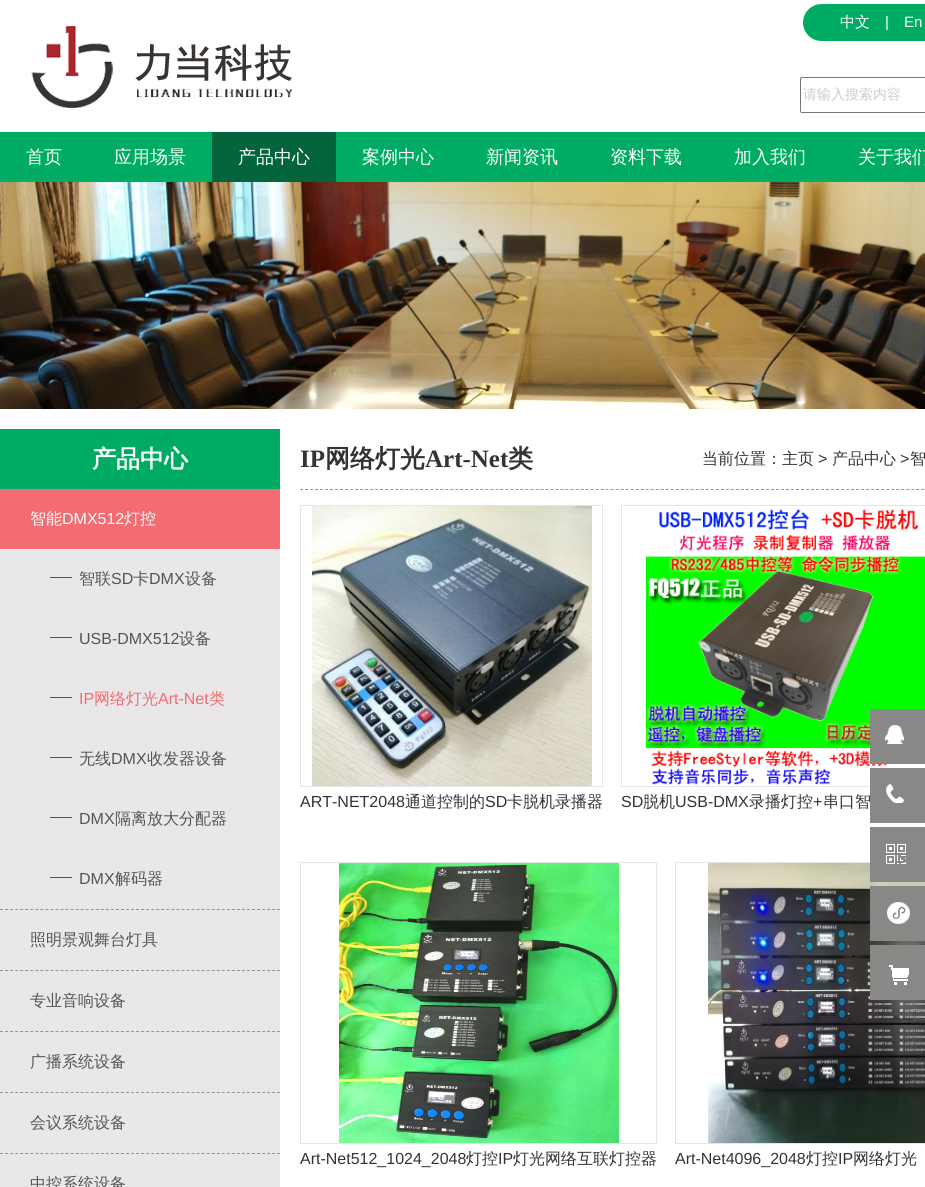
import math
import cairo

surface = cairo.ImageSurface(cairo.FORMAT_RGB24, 925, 1187)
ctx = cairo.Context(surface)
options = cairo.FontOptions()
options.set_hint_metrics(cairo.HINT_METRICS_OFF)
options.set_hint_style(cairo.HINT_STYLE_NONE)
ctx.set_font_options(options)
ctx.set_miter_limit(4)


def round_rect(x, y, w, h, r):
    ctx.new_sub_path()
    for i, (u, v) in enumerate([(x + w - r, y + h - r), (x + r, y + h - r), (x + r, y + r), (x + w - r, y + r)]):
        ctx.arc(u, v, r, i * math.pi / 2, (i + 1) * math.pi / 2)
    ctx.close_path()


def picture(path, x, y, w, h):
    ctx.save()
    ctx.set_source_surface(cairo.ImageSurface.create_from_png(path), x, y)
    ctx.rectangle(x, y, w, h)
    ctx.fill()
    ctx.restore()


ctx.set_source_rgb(1, 1, 1)
ctx.paint()
picture("img1.png", 31, 26, 261, 82)
picture("img2.png", 803, 4, 122, 37)
ctx.select_font_face("WenQuanYi Zen Hei Medium")
ctx.set_font_size(15)
ctx.set_source_rgb(1, 1, 1)
ctx.move_to(840, 27)
ctx.show_text("中文")
ctx.select_font_face("Liberation Sans")
ctx.move_to(885, 27)
ctx.show_text("|")
ctx.move_to(904, 27)
ctx.show_text("En")
round_rect(800.5, 77.5, 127, 35, 1.5)
ctx.set_source_rgb(0.463, 0.463, 0.463)
ctx.set_line_width(1)
ctx.stroke()
ctx.select_font_face("WenQuanYi Zen Hei Medium")
ctx.set_font_size(14)
ctx.set_source_rgb(0.8, 0.8, 0.8)
ctx.move_to(803, 99)
ctx.show_text("请输入搜索内容")
ctx.set_source_rgb(0, 0.675, 0.392)
ctx.rectangle(0, 132, 925, 50)
ctx.fill()
ctx.set_font_size(18)
ctx.set_source_rgb(1, 1, 1)
ctx.move_to(26, 163)
ctx.show_text("首页")
ctx.move_to(114, 163)
ctx.show_text("应用场景")
ctx.set_source_rgb(0.016, 0.396, 0.235)
ctx.rectangle(212, 132, 124, 50)
ctx.fill()
ctx.set_source_rgb(1, 1, 1)
ctx.move_to(238, 163)
ctx.show_text("产品中心")
ctx.move_to(362, 163)
ctx.show_text("案例中心")
ctx.move_to(486, 163)
ctx.show_text("新闻资讯")
ctx.move_to(610, 163)
ctx.show_text("资料下载")
ctx.move_to(734, 163)
ctx.show_text("加入我们")
ctx.move_to(858, 163)
ctx.show_text("关于我们")
picture("img3.png", 0, 182, 925, 227)
ctx.set_source_rgb(0, 0.675, 0.392)
ctx.rectangle(0, 429, 280, 60)
ctx.fill()
ctx.select_font_face("WenQuanYi Zen Hei", cairo.FONT_SLANT_NORMAL, cairo.FONT_WEIGHT_BOLD)
ctx.set_font_size(24)
ctx.set_source_rgb(1, 1, 1)
ctx.move_to(92, 467)
ctx.show_text("产品中心")
ctx.set_source_rgb(0.914, 0.906, 0.906)
ctx.rectangle(0, 549, 280, 638)
ctx.fill()
ctx.new_path()
ctx.move_to(0, 909.5)
ctx.line_to(280, 909.5)
ctx.set_source_rgb(0.584, 0.584, 0.584)
ctx.set_dash([3, 2.04])
ctx.stroke()
ctx.set_source_rgb(0.949, 0.424, 0.447)
ctx.rectangle(0, 489, 280, 60)
ctx.fill()
ctx.select_font_face("WenQuanYi Zen Hei Medium")
ctx.set_font_size(16)
ctx.set_source_rgb(1, 1, 1)
ctx.move_to(30, 524)
ctx.show_text("智能")
ctx.select_font_face("Liberation Sans")
ctx.move_to(62, 524)
ctx.show_text("DMX512")
ctx.select_font_face("WenQuanYi Zen Hei Medium")
ctx.move_to(124, 524)
ctx.show_text("灯控")
ctx.set_source_rgb(0.333, 0.333, 0.333)
ctx.rectangle(50, 577, 22, 1)
ctx.fill()
ctx.move_to(79, 584)
ctx.show_text("智联")
ctx.select_font_face("Liberation Sans")
ctx.move_to(111, 584)
ctx.show_text("SD")
ctx.select_font_face("WenQuanYi Zen Hei Medium")
ctx.move_to(133, 584)
ctx.show_text("卡")
ctx.select_font_face("Liberation Sans")
ctx.move_to(149, 584)
ctx.show_text("DMX")
ctx.select_font_face("WenQuanYi Zen Hei Medium")
ctx.move_to(185, 584)
ctx.show_text("设备")
ctx.rectangle(50, 637, 22, 1)
ctx.fill()
ctx.select_font_face("Liberation Sans")
ctx.move_to(79, 644)
ctx.show_text("USB-DMX512")
ctx.select_font_face("WenQuanYi Zen Hei Medium")
ctx.move_to(179, 644)
ctx.show_text("设备")
ctx.rectangle(50, 697, 22, 1)
ctx.fill()
ctx.select_font_face("Liberation Sans")
ctx.set_source_rgb(0.949, 0.424, 0.447)
ctx.move_to(79, 704)
ctx.show_text("IP")
ctx.select_font_face("WenQuanYi Zen Hei Medium")
ctx.move_to(94, 704)
ctx.show_text("网络灯光")
ctx.select_font_face("Liberation Sans")
ctx.move_to(158, 704)
ctx.show_text("Art-Net")
ctx.select_font_face("WenQuanYi Zen Hei Medium")
ctx.move_to(209, 704)
ctx.show_text("类")
ctx.set_source_rgb(0.333, 0.333, 0.333)
ctx.rectangle(50, 757, 22, 1)
ctx.fill()
ctx.move_to(79, 764)
ctx.show_text("无线")
ctx.select_font_face("Liberation Sans")
ctx.move_to(111, 764)
ctx.show_text("DMX")
ctx.select_font_face("WenQuanYi Zen Hei Medium")
ctx.move_to(147, 764)
ctx.show_text("收发器设备")
ctx.rectangle(50, 817, 22, 1)
ctx.fill()
ctx.select_font_face("Liberation Sans")
ctx.move_to(79, 824)
ctx.show_text("DMX")
ctx.select_font_face("WenQuanYi Zen Hei Medium")
ctx.move_to(115, 824)
ctx.show_text("隔离放大分配器")
ctx.rectangle(50, 877, 22, 1)
ctx.fill()
ctx.select_font_face("Liberation Sans")
ctx.move_to(79, 884)
ctx.show_text("DMX")
ctx.select_font_face("WenQuanYi Zen Hei Medium")
ctx.move_to(115, 884)
ctx.show_text("解码器")
ctx.new_path()
ctx.move_to(0, 970.5)
ctx.line_to(280, 970.5)
ctx.set_source_rgb(0.584, 0.584, 0.584)
ctx.stroke()
ctx.set_source_rgb(0.333, 0.333, 0.333)
ctx.move_to(30, 945)
ctx.show_text("照明景观舞台灯具")
ctx.new_path()
ctx.move_to(0, 1031.5)
ctx.line_to(280, 1031.5)
ctx.set_source_rgb(0.584, 0.584, 0.584)
ctx.stroke()
ctx.set_source_rgb(0.333, 0.333, 0.333)
ctx.move_to(30, 1006)
ctx.show_text("专业音响设备")
ctx.new_path()
ctx.move_to(0, 1092.5)
ctx.line_to(280, 1092.5)
ctx.set_source_rgb(0.584, 0.584, 0.584)
ctx.stroke()
ctx.set_source_rgb(0.333, 0.333, 0.333)
ctx.move_to(30, 1067)
ctx.show_text("广播系统设备")
ctx.new_path()
ctx.move_to(0, 1153.5)
ctx.line_to(280, 1153.5)
ctx.set_source_rgb(0.584, 0.584, 0.584)
ctx.stroke()
ctx.set_source_rgb(0.333, 0.333, 0.333)
ctx.move_to(30, 1128)
ctx.show_text("会议系统设备")
ctx.move_to(30, 1189)
ctx.show_text("中控系统设备")
ctx.new_path()
ctx.move_to(300, 489.5)
ctx.line_to(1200, 489.5)
ctx.set_source_rgb(0.6, 0.6, 0.6)
ctx.set_dash([3, 2.01])
ctx.stroke()
ctx.select_font_face("Liberation Serif", cairo.FONT_SLANT_NORMAL, cairo.FONT_WEIGHT_BOLD)
ctx.set_font_size(25)
ctx.set_source_rgb(0.2, 0.2, 0.2)
ctx.move_to(300, 467)
ctx.show_text("IP")
ctx.select_font_face("WenQuanYi Zen Hei", cairo.FONT_SLANT_NORMAL, cairo.FONT_WEIGHT_BOLD)
ctx.move_to(325, 467)
ctx.show_text("网络灯光")
ctx.select_font_face("Liberation Serif", cairo.FONT_SLANT_NORMAL, cairo.FONT_WEIGHT_BOLD)
ctx.move_to(425, 467)
ctx.show_text("Art-Net")
ctx.select_font_face("WenQuanYi Zen Hei", cairo.FONT_SLANT_NORMAL, cairo.FONT_WEIGHT_BOLD)
ctx.move_to(508, 467)
ctx.show_text("类")
ctx.select_font_face("WenQuanYi Zen Hei Medium")
ctx.set_font_size(16)
ctx.move_to(702, 464)
ctx.show_text("当前位置：主页")
ctx.select_font_face("Liberation Sans")
ctx.move_to(818, 464)
ctx.show_text(">")
ctx.select_font_face("WenQuanYi Zen Hei Medium")
ctx.move_to(832, 464)
ctx.show_text("产品中心")
ctx.select_font_face("Liberation Sans")
ctx.move_to(900, 464)
ctx.show_text(">")
ctx.select_font_face("WenQuanYi Zen Hei Medium")
ctx.move_to(910, 464)
ctx.show_text("智")
ctx.rectangle(300.5, 505.5, 302, 281)
ctx.set_source_rgb(0.898, 0.898, 0.898)
ctx.set_dash([])
ctx.stroke()
picture("img4.png", 312, 506, 280, 280)
ctx.select_font_face("Liberation Sans")
ctx.set_source_rgb(0.2, 0.2, 0.2)
ctx.move_to(300, 807)
ctx.show_text("ART-NET2048")
ctx.select_font_face("WenQuanYi Zen Hei Medium")
ctx.move_to(405, 807)
ctx.show_text("通道控制的")
ctx.select_font_face("Liberation Sans")
ctx.move_to(485, 807)
ctx.show_text("SD")
ctx.select_font_face("WenQuanYi Zen Hei Medium")
ctx.move_to(507, 807)
ctx.show_text("卡脱机录播器")
ctx.rectangle(621.5, 505.5, 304, 281)
ctx.set_source_rgb(0.898, 0.898, 0.898)
ctx.stroke()
picture("img5.png", 646, 509, 279, 276)
ctx.select_font_face("Liberation Sans")
ctx.set_source_rgb(0.2, 0.2, 0.2)
ctx.move_to(621, 807)
ctx.show_text("SD")
ctx.select_font_face("WenQuanYi Zen Hei Medium")
ctx.move_to(643, 807)
ctx.show_text("脱机")
ctx.select_font_face("Liberation Sans")
ctx.move_to(675, 807)
ctx.show_text("USB-DMX")
ctx.select_font_face("WenQuanYi Zen Hei Medium")
ctx.move_to(749, 807)
ctx.show_text("录播灯控")
ctx.select_font_face("Liberation Sans")
ctx.move_to(813, 807)
ctx.show_text("+")
ctx.select_font_face("WenQuanYi Zen Hei Medium")
ctx.move_to(823, 807)
ctx.show_text("串口智")
ctx.rectangle(300.5, 862.5, 356, 281)
ctx.set_source_rgb(0.898, 0.898, 0.898)
ctx.stroke()
picture("img6.png", 339, 863, 280, 280)
ctx.select_font_face("Liberation Sans")
ctx.set_source_rgb(0.2, 0.2, 0.2)
ctx.move_to(300, 1164)
ctx.show_text("Art-Net512_1024_2048")
ctx.select_font_face("WenQuanYi Zen Hei Medium")
ctx.move_to(466, 1164)
ctx.show_text("灯控")
ctx.select_font_face("Liberation Sans")
ctx.move_to(498, 1164)
ctx.show_text("IP")
ctx.select_font_face("WenQuanYi Zen Hei Medium")
ctx.move_to(513, 1164)
ctx.show_text("灯光网络互联灯控器")
ctx.rectangle(675.5, 862.5, 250, 281)
ctx.set_source_rgb(0.898, 0.898, 0.898)
ctx.stroke()
picture("img7.png", 708, 863, 217, 280)
ctx.select_font_face("Liberation Sans")
ctx.set_source_rgb(0.2, 0.2, 0.2)
ctx.move_to(675, 1164)
ctx.show_text("Art-Net4096_2048")
ctx.select_font_face("WenQuanYi Zen Hei Medium")
ctx.move_to(806, 1164)
ctx.show_text("灯控")
ctx.select_font_face("Liberation Sans")
ctx.move_to(838, 1164)
ctx.show_text("IP")
ctx.select_font_face("WenQuanYi Zen Hei Medium")
ctx.move_to(853, 1164)
ctx.show_text("网络灯光")
ctx.set_source_rgb(0.533, 0.533, 0.525)
ctx.rectangle(870, 709, 55, 55)
ctx.fill()
picture("img8.png", 885, 725, 19, 19)
ctx.rectangle(870, 768, 55, 55)
ctx.fill()
picture("img9.png", 886, 784, 18, 19)
ctx.rectangle(870, 827, 55, 55)
ctx.fill()
picture("img10.png", 886, 844, 20, 20)
ctx.rectangle(870, 886, 55, 55)
ctx.fill()
picture("img11.png", 887, 902, 23, 22)
ctx.rectangle(870, 945, 55, 55)
ctx.fill()
picture("img12.png", 889, 965, 20, 20)
surface.write_to_png("page.png")
